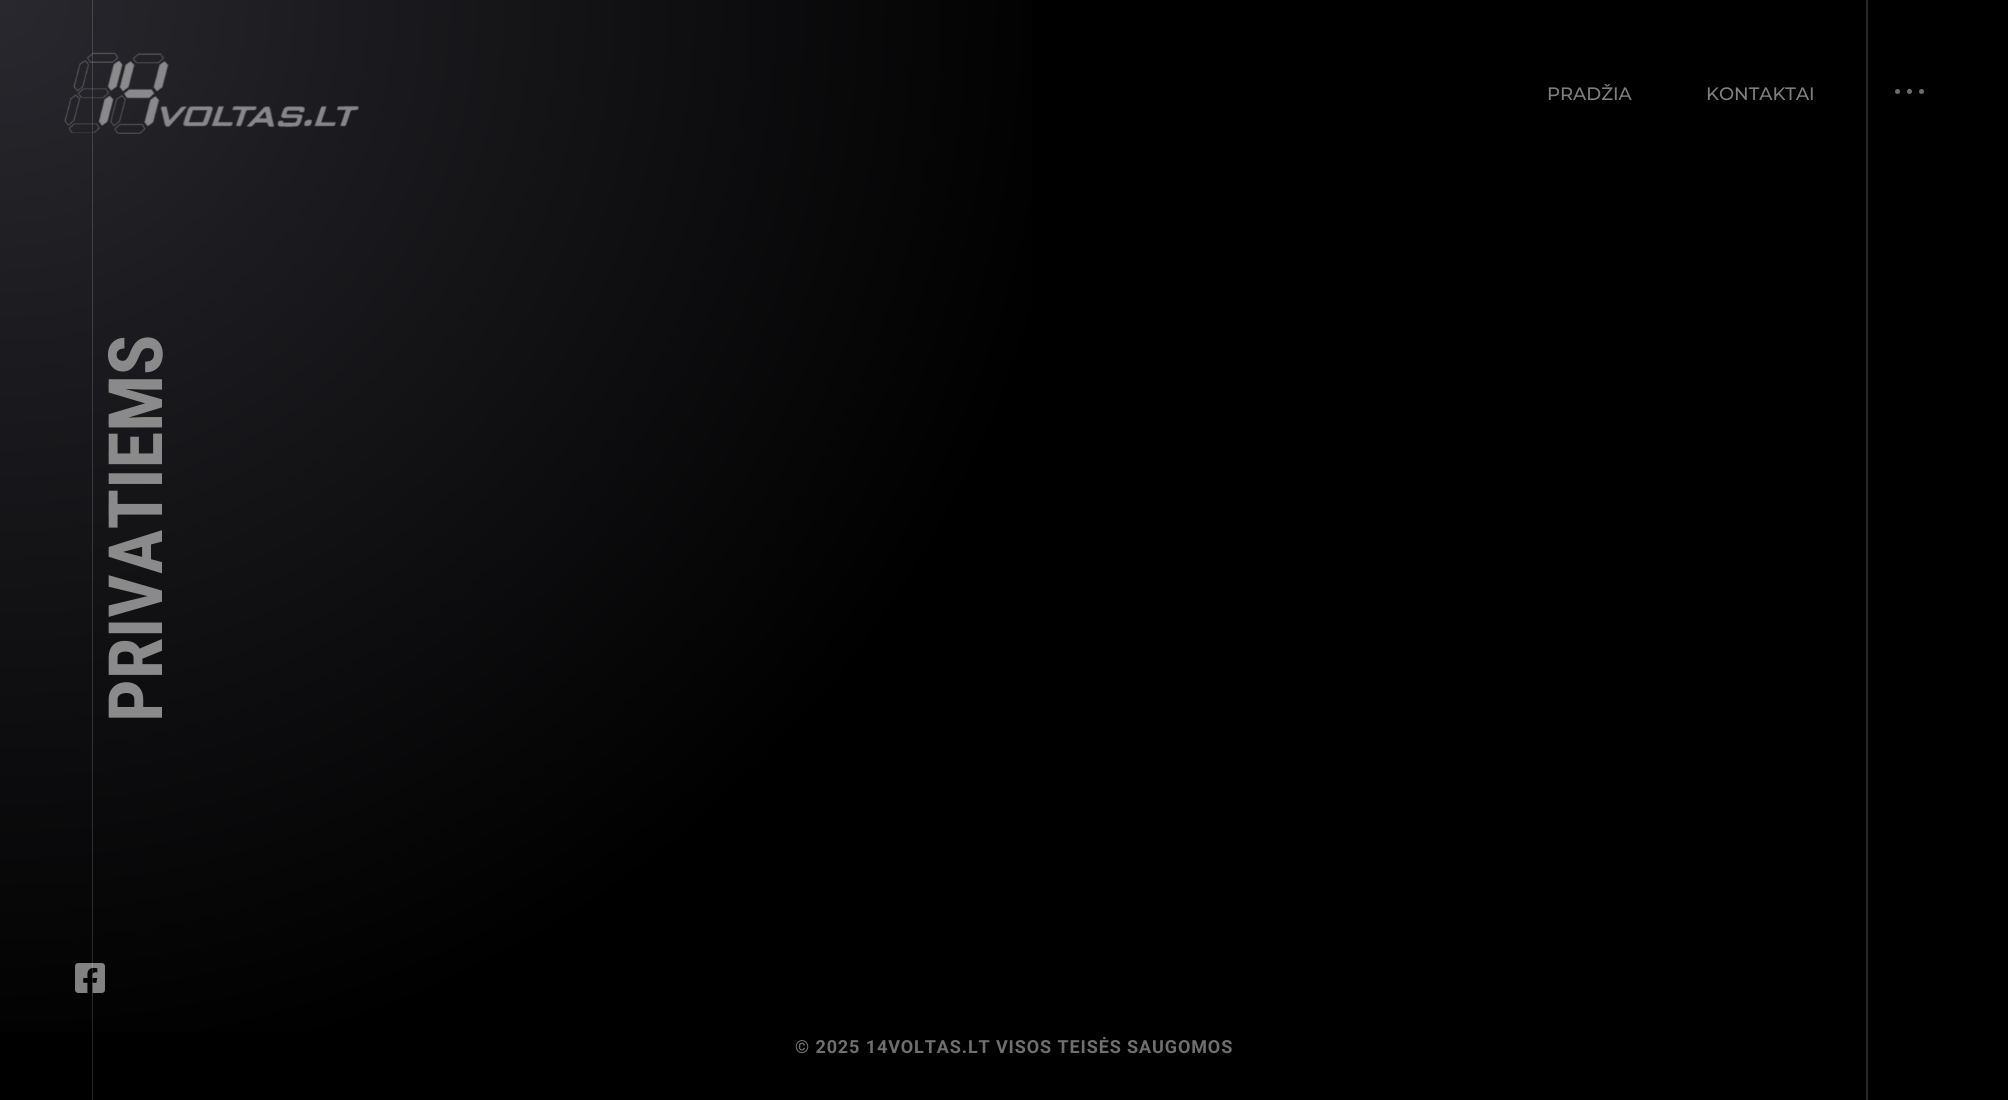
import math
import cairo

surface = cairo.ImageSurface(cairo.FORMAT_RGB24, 2008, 1100)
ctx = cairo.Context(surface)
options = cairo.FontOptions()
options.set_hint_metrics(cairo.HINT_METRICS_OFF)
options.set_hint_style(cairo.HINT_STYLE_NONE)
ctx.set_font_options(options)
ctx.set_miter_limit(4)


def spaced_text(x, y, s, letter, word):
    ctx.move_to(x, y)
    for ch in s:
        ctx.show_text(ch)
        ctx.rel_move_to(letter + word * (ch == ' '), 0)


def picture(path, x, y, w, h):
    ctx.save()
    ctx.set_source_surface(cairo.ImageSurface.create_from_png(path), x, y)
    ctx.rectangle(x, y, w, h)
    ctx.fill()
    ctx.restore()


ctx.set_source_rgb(0, 0, 0)
ctx.paint()
gradient = cairo.RadialGradient(0, 0, 0, 0, 0, 1557)
gradient.add_color_stop_rgba(0, 0.157, 0.157, 0.18, 1)
gradient.add_color_stop_rgba(0.7, 0, 0, 0, 1)
ctx.set_source(gradient)
ctx.rectangle(0, 0, 1032, 1032)
ctx.fill()
picture("img2.png", 75, 963, 30, 30)
ctx.set_source_rgba(1, 1, 1, 0.15)
ctx.rectangle(92, 0, 1, 1100)
ctx.fill()
picture("img1.png", 64, 52, 295, 82)
ctx.select_font_face("Montserrat Medium")
ctx.set_font_size(18)
ctx.set_source_rgb(0.502, 0.502, 0.502)
ctx.move_to(1547, 100)
ctx.show_text("PRADŽIA")
ctx.move_to(1706, 100)
ctx.show_text("KONTAKTAI")
ctx.set_source_rgb(0.424, 0.424, 0.424)
ctx.new_path()
ctx.arc(1897.5, 91.5, 2.5, 0, 2 * math.pi)
ctx.fill()
ctx.arc(1909.5, 91.5, 2.5, 0, 2 * math.pi)
ctx.fill()
ctx.new_path()
ctx.move_to(1907.5, 90.5)
ctx.line_to(1909.5, 88.5)
ctx.line_to(1911.5, 90.5)
ctx.line_to(1909.5, 93)
ctx.close_path()
ctx.fill()
ctx.arc(1921.5, 91.5, 2.5, 0, 2 * math.pi)
ctx.fill()
ctx.set_source_rgb(0.149, 0.149, 0.149)
ctx.rectangle(1866, 0, 2, 1100)
ctx.fill()
ctx.select_font_face("Roboto Condensed", cairo.FONT_SLANT_NORMAL, cairo.FONT_WEIGHT_BOLD)
ctx.set_font_size(75)
ctx.set_source_rgb(0.541, 0.541, 0.545)
ctx.save()
ctx.translate(162, 722)
ctx.rotate(-90 * math.pi / 180)
ctx.move_to(0, 0)
ctx.show_text("PRIVATIEMS")
ctx.restore()
ctx.select_font_face("Roboto", cairo.FONT_SLANT_NORMAL, cairo.FONT_WEIGHT_BOLD)
ctx.set_font_size(18)
ctx.set_source_rgb(0.435, 0.435, 0.435)
spaced_text(795, 1053, "© 2025 14VOLTAS.LT VISOS TEISĖS SAUGOMOS", 0.9, 0)
surface.write_to_png("page.png")
